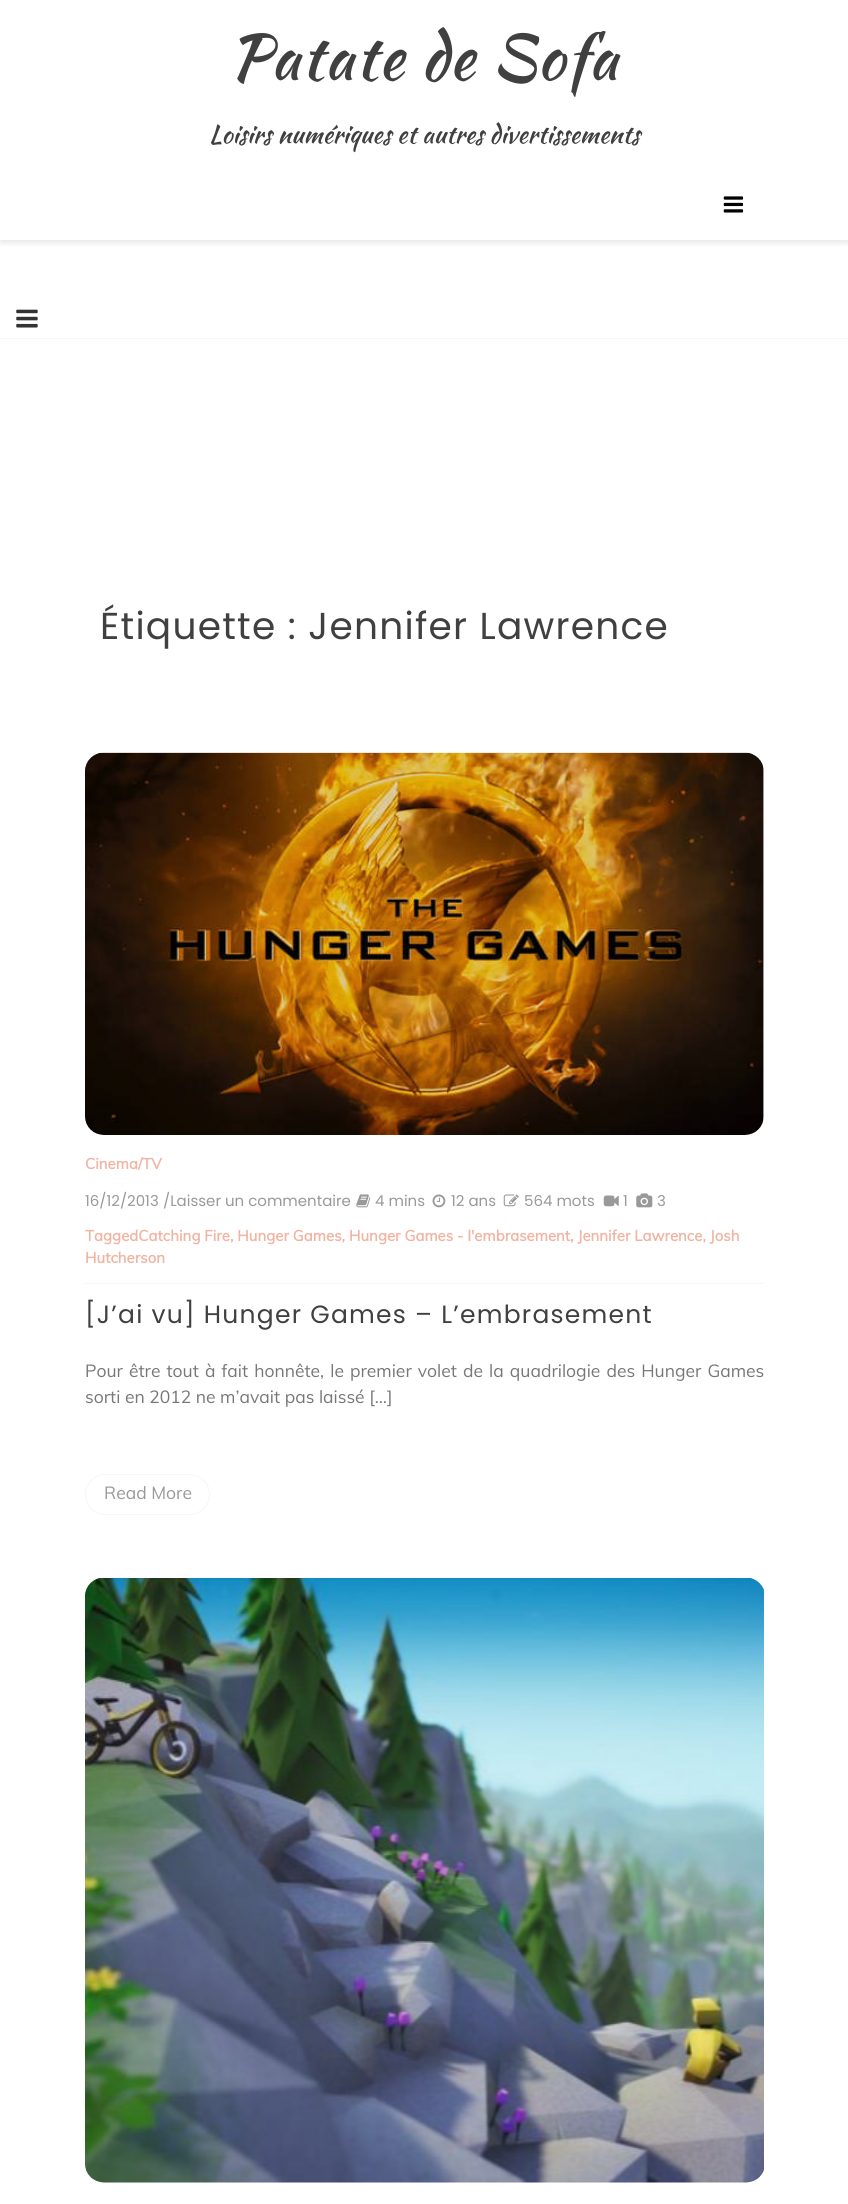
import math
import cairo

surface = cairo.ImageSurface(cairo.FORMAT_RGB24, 848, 2204)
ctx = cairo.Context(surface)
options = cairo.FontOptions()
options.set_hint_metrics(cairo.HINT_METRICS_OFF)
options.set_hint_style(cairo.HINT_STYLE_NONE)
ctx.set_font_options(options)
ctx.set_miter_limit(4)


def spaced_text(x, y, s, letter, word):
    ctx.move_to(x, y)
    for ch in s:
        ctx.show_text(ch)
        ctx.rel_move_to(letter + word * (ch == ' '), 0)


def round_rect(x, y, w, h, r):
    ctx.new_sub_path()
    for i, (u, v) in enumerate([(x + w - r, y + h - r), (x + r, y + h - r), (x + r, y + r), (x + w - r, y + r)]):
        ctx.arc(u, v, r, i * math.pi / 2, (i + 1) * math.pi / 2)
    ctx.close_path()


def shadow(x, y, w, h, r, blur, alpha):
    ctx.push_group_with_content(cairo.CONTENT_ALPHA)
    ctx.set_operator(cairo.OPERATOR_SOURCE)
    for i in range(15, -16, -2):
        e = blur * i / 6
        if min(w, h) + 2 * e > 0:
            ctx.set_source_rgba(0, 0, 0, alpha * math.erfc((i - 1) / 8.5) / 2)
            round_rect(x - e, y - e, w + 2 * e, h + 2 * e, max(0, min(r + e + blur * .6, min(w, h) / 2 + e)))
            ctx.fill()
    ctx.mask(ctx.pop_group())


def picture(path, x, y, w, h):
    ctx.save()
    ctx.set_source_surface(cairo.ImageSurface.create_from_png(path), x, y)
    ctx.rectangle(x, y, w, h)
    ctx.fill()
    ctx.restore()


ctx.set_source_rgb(1, 1, 1)
ctx.paint()
ctx.select_font_face("Kaushan Script")
ctx.set_font_size(62.5)
ctx.set_source_rgb(0.251, 0.251, 0.251)
spaced_text(229, 79, "Patate de Sofa", 1.25, 0)
ctx.set_font_size(25)
ctx.move_to(209, 143)
ctx.show_text("Loisirs numériques et autres divertissements")
ctx.save()
ctx.rectangle(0, 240, 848, 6)
ctx.clip()
ctx.set_source_rgb(0.043, 0.043, 0.043)
shadow(0, 175, 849, 68, 0, 3, 0.1)
ctx.restore()
picture("img1.png", 723, 196, 21, 17)
ctx.set_source_rgb(0.961, 0.961, 0.961)
ctx.rectangle(0, 338, 848, 1)
ctx.fill()
picture("img2.png", 16, 309, 22, 19)
ctx.select_font_face("Poppins")
ctx.set_font_size(37.5)
ctx.set_source_rgb(0.251, 0.251, 0.251)
spaced_text(100, 639, "Étiquette : Jennifer Lawrence", 1.25, 0)
picture("img3.png", 85, 752, 679, 383)
ctx.set_source_rgb(0.961, 0.961, 0.961)
ctx.rectangle(85, 1283, 679, 1)
ctx.fill()
ctx.select_font_face("Muli", cairo.FONT_SLANT_NORMAL, cairo.FONT_WEIGHT_BOLD)
ctx.set_font_size(15)
ctx.set_source_rgb(0.945, 0.706, 0.639)
ctx.move_to(85, 1169)
ctx.show_text("Cinema/TV")
ctx.select_font_face("Poppins")
ctx.set_source_rgb(0.6, 0.6, 0.6)
ctx.move_to(85, 1206)
ctx.show_text("16/12/2013")
ctx.move_to(163, 1206)
ctx.show_text("/Laisser un commentaire")
picture("img4.png", 356, 1194, 15, 14)
ctx.move_to(375, 1206)
ctx.show_text("4 mins")
picture("img5.png", 432, 1194, 14, 14)
ctx.move_to(451, 1206)
ctx.show_text("12 ans")
picture("img6.png", 503, 1194, 16, 13)
ctx.move_to(524, 1206)
ctx.show_text("564 mots")
picture("img7.png", 603, 1195, 16, 12)
ctx.move_to(623, 1206)
ctx.show_text("1")
picture("img8.png", 636, 1193, 17, 15)
ctx.move_to(657, 1206)
ctx.show_text("3")
ctx.select_font_face("Muli", cairo.FONT_SLANT_NORMAL, cairo.FONT_WEIGHT_BOLD)
ctx.set_source_rgb(0.945, 0.706, 0.639)
ctx.move_to(85, 1241)
ctx.show_text("TaggedCatching Fire, Hunger Games, Hunger Games - l'embrasement, Jennifer Lawrence, Josh")
ctx.move_to(85, 1263)
ctx.show_text("Hutcherson")
ctx.select_font_face("Poppins")
ctx.set_font_size(25)
ctx.set_source_rgb(0.251, 0.251, 0.251)
spaced_text(85, 1323, "[J’ai vu] Hunger Games – L’embrasement", 1.25, 0)
ctx.select_font_face("Muli")
ctx.set_font_size(17.5)
ctx.set_source_rgb(0.467, 0.467, 0.467)
spaced_text(85, 1377, "Pour être tout à fait honnête, le premier volet de la quadrilogie des Hunger Games", 0, 1.5)
ctx.move_to(85, 1403)
ctx.show_text("sorti en 2012 ne m’avait pas laissé […]")
round_rect(85.5, 1474.5, 124, 40, 20)
ctx.set_source_rgb(0.961, 0.961, 0.961)
ctx.set_line_width(1)
ctx.stroke()
ctx.set_source_rgb(0.6, 0.6, 0.6)
ctx.move_to(104, 1499)
ctx.show_text("Read More")
picture("img9.png", 85, 1578, 679, 605)
surface.write_to_png("page.png")
